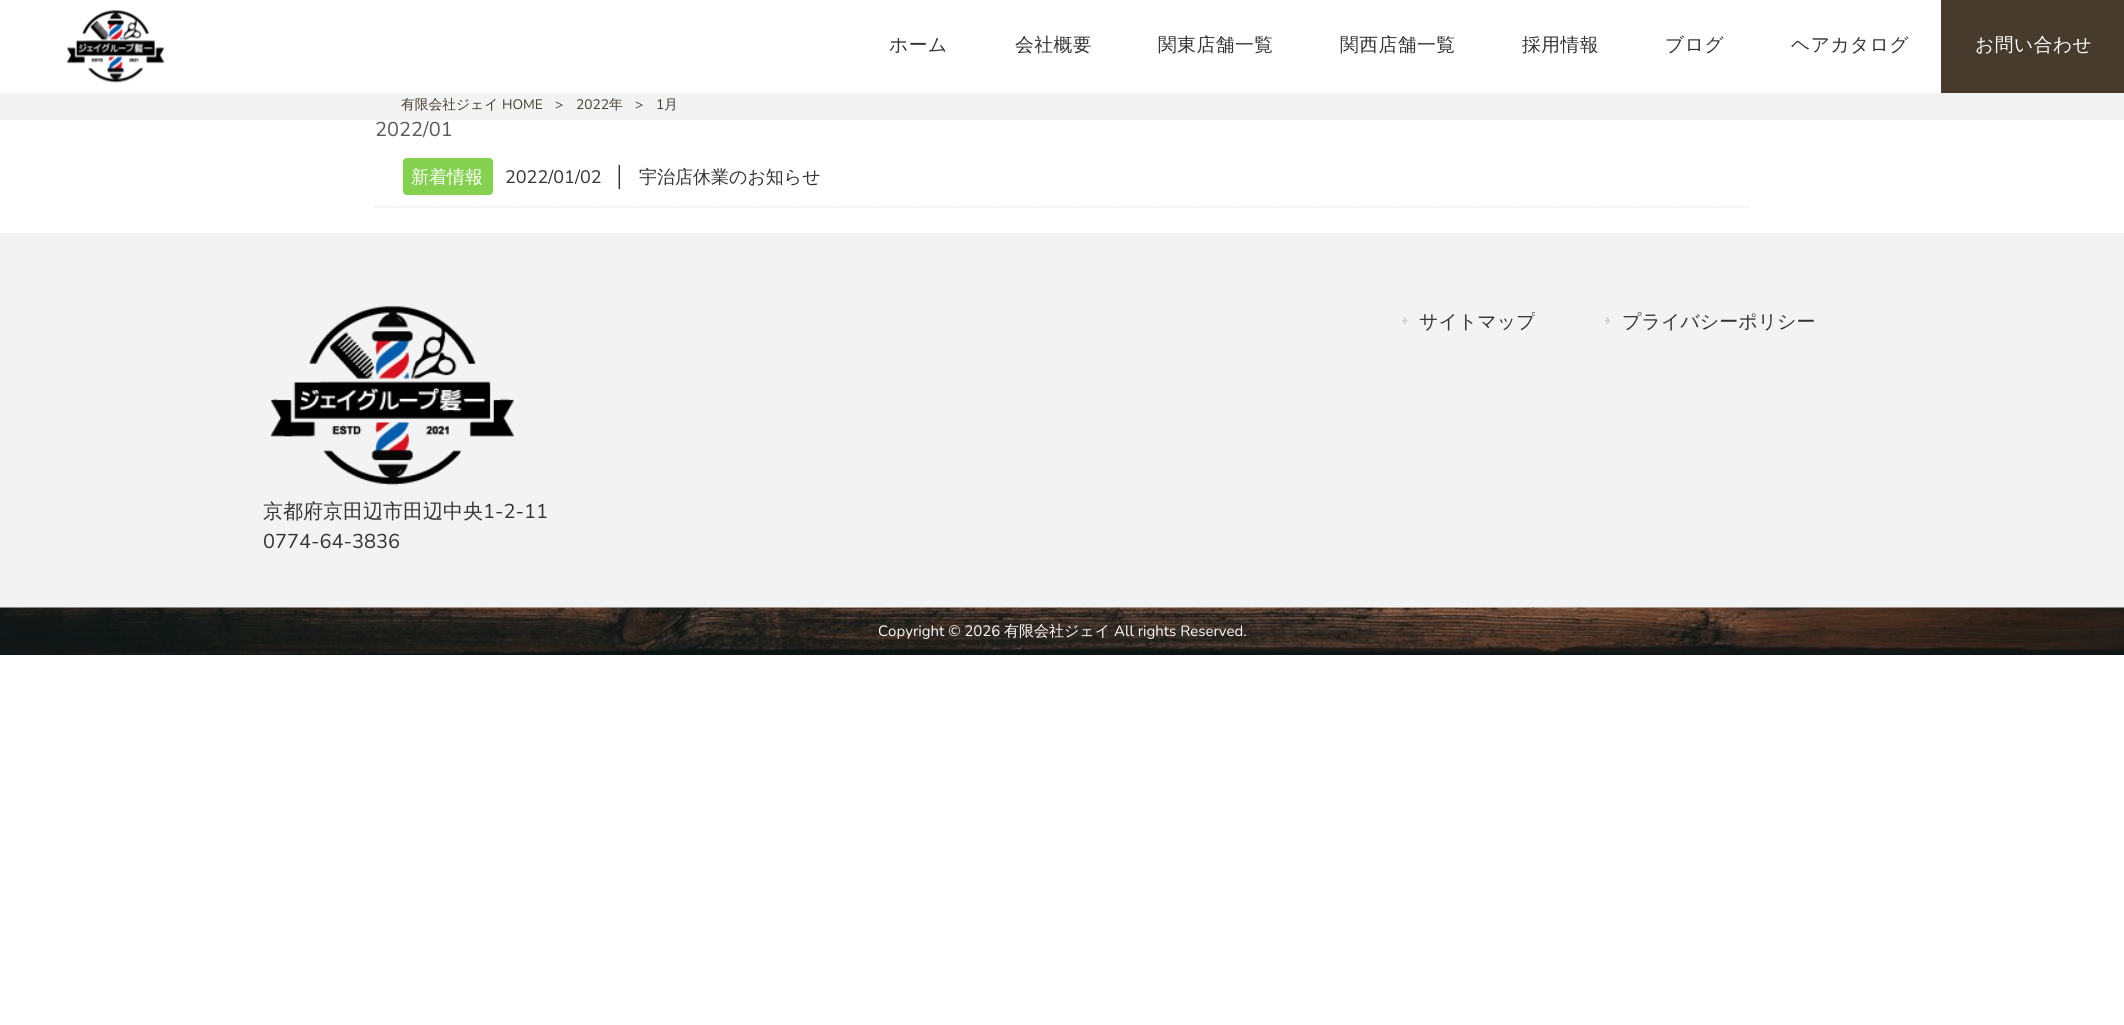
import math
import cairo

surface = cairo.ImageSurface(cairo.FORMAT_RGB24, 2124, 1025)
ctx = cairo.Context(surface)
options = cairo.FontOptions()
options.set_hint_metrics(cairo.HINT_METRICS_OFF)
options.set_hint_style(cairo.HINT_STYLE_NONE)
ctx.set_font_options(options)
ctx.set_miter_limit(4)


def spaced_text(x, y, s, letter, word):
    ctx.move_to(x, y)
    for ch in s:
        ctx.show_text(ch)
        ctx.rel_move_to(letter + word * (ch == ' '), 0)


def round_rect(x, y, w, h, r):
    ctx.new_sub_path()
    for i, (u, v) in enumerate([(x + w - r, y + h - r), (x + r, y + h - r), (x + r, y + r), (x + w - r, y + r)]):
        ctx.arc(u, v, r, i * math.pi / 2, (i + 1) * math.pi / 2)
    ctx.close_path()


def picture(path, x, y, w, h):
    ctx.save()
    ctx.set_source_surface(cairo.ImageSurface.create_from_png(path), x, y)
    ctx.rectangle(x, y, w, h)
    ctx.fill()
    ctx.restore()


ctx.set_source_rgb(1, 1, 1)
ctx.paint()
picture("img1.png", 66, 10, 99, 73)
ctx.select_font_face("WenQuanYi Zen Hei Medium")
ctx.set_font_size(18.75)
ctx.set_source_rgb(0.2, 0.2, 0.2)
spaced_text(889, 51, "ホーム", 0.5, 0)
spaced_text(1015, 51, "会社概要", 0.5, 0)
spaced_text(1158, 51, "関東店舗一覧", 0.5, 0)
spaced_text(1340, 51, "関西店舗一覧", 0.5, 0)
spaced_text(1522, 51, "採用情報", 0.5, 0)
spaced_text(1665, 51, "ブログ", 0.5, 0)
spaced_text(1791, 51, "ヘアカタログ", 0.5, 0)
ctx.set_source_rgb(0.275, 0.231, 0.176)
ctx.rectangle(1941, 0, 183, 93)
ctx.fill()
ctx.set_source_rgb(1, 1, 1)
spaced_text(1975, 51, "お問い合わせ", 0.5, 0)
ctx.set_source_rgb(0.953, 0.953, 0.953)
ctx.rectangle(0, 93, 2124, 27)
ctx.fill()
ctx.set_font_size(13.75)
ctx.set_source_rgb(0.275, 0.231, 0.176)
ctx.move_to(401, 109)
ctx.show_text("有限会社ジェイ")
ctx.select_font_face("Nunito ExtraLight")
ctx.move_to(502, 109)
ctx.show_text("HOME")
ctx.move_to(555, 109)
ctx.show_text(">")
ctx.move_to(576, 109)
ctx.show_text("2022")
ctx.select_font_face("WenQuanYi Zen Hei Medium")
ctx.move_to(609, 109)
ctx.show_text("年")
ctx.select_font_face("Nunito ExtraLight")
ctx.move_to(635, 109)
ctx.show_text(">")
ctx.move_to(656, 109)
ctx.show_text("1")
ctx.select_font_face("WenQuanYi Zen Hei Medium")
ctx.move_to(664, 109)
ctx.show_text("月")
ctx.select_font_face("Nunito ExtraLight")
ctx.set_font_size(20)
ctx.set_source_rgb(0.349, 0.349, 0.349)
ctx.move_to(375, 136)
ctx.show_text("2022/01")
ctx.new_path()
ctx.move_to(375, 207)
ctx.line_to(1750, 207)
ctx.set_source_rgb(0.867, 0.867, 0.867)
ctx.set_line_width(1.2)
ctx.set_dash([1.25, 1.25])
ctx.stroke()
ctx.set_source_rgb(0.514, 0.82, 0.31)
round_rect(403, 158, 90, 37, 4)
ctx.fill()
ctx.select_font_face("WenQuanYi Zen Hei Medium")
ctx.set_font_size(18)
ctx.set_source_rgb(1, 1, 1)
ctx.move_to(411, 183)
ctx.show_text("新着情報")
ctx.select_font_face("Nunito ExtraLight")
ctx.set_source_rgb(0.2, 0.2, 0.2)
ctx.move_to(505, 183)
ctx.show_text("2022/01/02")
ctx.select_font_face("Liberation Sans")
ctx.set_font_size(20)
ctx.move_to(614, 183)
ctx.show_text("│")
ctx.select_font_face("WenQuanYi Zen Hei Medium")
ctx.set_font_size(18)
ctx.move_to(639, 183)
ctx.show_text("宇治店休業のお知らせ")
ctx.set_source_rgb(0.953, 0.953, 0.953)
ctx.rectangle(0, 233, 2124, 375)
ctx.fill()
picture("img2.png", 270, 306, 244, 180)
picture("img3.png", 1402, 317, 6, 7)
ctx.save()
ctx.rectangle(1404, 309, 131, 27)
ctx.clip()
ctx.set_font_size(19)
ctx.set_source_rgb(0.2, 0.2, 0.2)
ctx.move_to(1419, 328)
ctx.show_text("サイトマップ")
ctx.restore()
picture("img4.png", 1605, 317, 6, 7)
ctx.set_font_size(19)
ctx.set_source_rgb(0.2, 0.2, 0.2)
ctx.move_to(1622, 328)
ctx.show_text("プライバシーポリシー")
ctx.set_font_size(20)
ctx.move_to(263, 518)
ctx.show_text("京都府京田辺市田辺中央")
ctx.select_font_face("Nunito ExtraLight")
ctx.move_to(483, 518)
ctx.show_text("1-2-11")
ctx.move_to(263, 548)
ctx.show_text("0774-64-3836")
picture("img5.png", 0, 607, 2124, 48)
ctx.set_font_size(15)
ctx.set_source_rgb(1, 1, 1)
ctx.move_to(878, 636)
ctx.show_text("Copyright © 2026")
ctx.select_font_face("WenQuanYi Zen Hei Medium")
ctx.move_to(1004, 636)
ctx.show_text("有限会社ジェイ")
ctx.select_font_face("Nunito ExtraLight")
ctx.move_to(1114, 636)
ctx.show_text("All rights Reserved.")
surface.write_to_png("page.png")
